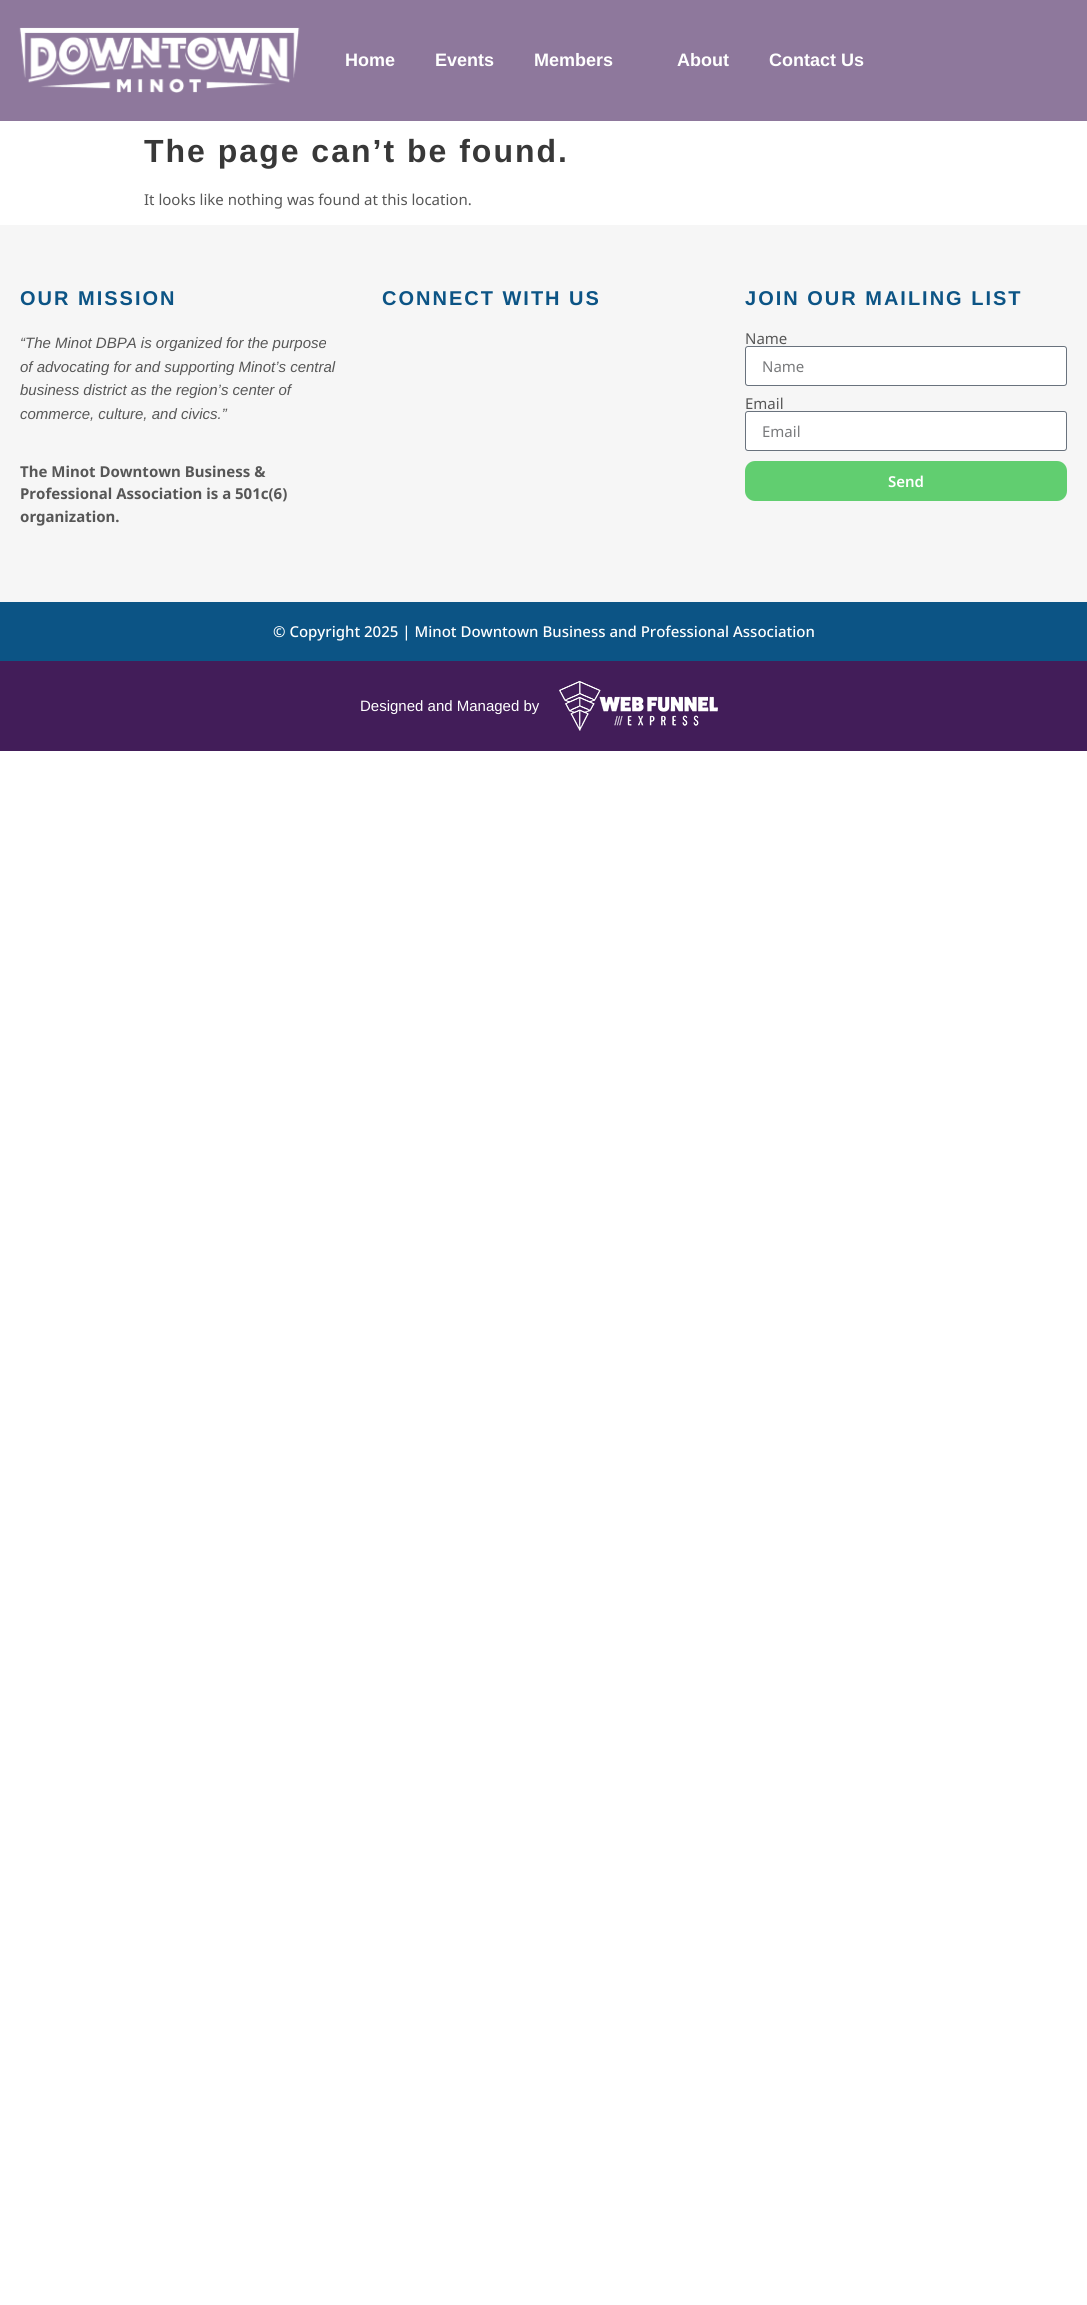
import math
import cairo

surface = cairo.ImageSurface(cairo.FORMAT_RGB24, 1087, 2305)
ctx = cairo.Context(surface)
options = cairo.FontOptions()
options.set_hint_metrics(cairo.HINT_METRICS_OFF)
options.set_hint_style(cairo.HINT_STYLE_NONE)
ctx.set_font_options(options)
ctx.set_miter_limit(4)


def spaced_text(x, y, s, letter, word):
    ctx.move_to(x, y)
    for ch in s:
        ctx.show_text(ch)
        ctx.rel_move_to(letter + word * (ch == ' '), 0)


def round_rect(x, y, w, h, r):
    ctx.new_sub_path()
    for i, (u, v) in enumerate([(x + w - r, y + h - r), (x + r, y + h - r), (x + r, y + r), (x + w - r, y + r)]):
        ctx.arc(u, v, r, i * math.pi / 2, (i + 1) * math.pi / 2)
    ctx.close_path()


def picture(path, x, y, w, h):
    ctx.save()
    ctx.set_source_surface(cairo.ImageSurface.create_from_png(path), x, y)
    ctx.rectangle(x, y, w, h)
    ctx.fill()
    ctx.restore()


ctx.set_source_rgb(1, 1, 1)
ctx.paint()
ctx.set_source_rgb(0.557, 0.471, 0.612)
ctx.rectangle(0, 0, 1087, 121)
ctx.fill()
picture("img1.png", 19, 27, 281, 66)
ctx.select_font_face("Liberation Sans", cairo.FONT_SLANT_NORMAL, cairo.FONT_WEIGHT_BOLD)
ctx.set_font_size(18)
ctx.set_source_rgb(1, 1, 1)
ctx.move_to(345, 66)
ctx.show_text("Home")
ctx.move_to(435, 66)
ctx.show_text("Events")
ctx.move_to(534, 66)
ctx.show_text("Members")
ctx.move_to(677, 66)
ctx.show_text("About")
ctx.move_to(769, 66)
ctx.show_text("Contact Us")
ctx.set_font_size(32)
ctx.set_source_rgb(0.22, 0.22, 0.22)
spaced_text(144, 162, "The page can’t be found.", 2, 0)
ctx.select_font_face("Noto Sans")
ctx.set_font_size(15)
ctx.set_source_rgb(0.341, 0.341, 0.341)
ctx.move_to(144, 205)
ctx.show_text("It looks like nothing was found at this location.")
ctx.set_source_rgb(0.961, 0.961, 0.961)
ctx.rectangle(0, 225, 1087, 377)
ctx.fill()
ctx.select_font_face("Liberation Sans", cairo.FONT_SLANT_NORMAL, cairo.FONT_WEIGHT_BOLD)
ctx.set_font_size(20)
ctx.set_source_rgb(0.047, 0.329, 0.522)
spaced_text(20, 305, "OUR MISSION", 2, 0)
ctx.select_font_face("Liberation Sans", cairo.FONT_SLANT_ITALIC)
ctx.set_font_size(15)
ctx.set_source_rgb(0.341, 0.341, 0.341)
ctx.move_to(20, 348)
ctx.show_text("“The Minot DBPA is organized for the purpose")
ctx.move_to(20, 372)
ctx.show_text("of advocating for and supporting Minot’s central")
ctx.move_to(20, 395)
ctx.show_text("business district as the region’s center of")
ctx.move_to(20, 419)
ctx.show_text("commerce, culture, and civics.”")
ctx.select_font_face("Noto Sans", cairo.FONT_SLANT_NORMAL, cairo.FONT_WEIGHT_BOLD)
ctx.move_to(20, 477)
ctx.show_text("The Minot Downtown Business &")
ctx.move_to(20, 499)
ctx.show_text("Professional Association is a 501c(6)")
ctx.move_to(20, 522)
ctx.show_text("organization.")
ctx.select_font_face("Liberation Sans", cairo.FONT_SLANT_NORMAL, cairo.FONT_WEIGHT_BOLD)
ctx.set_font_size(20)
ctx.set_source_rgb(0.047, 0.329, 0.522)
spaced_text(382, 305, "CONNECT WITH US", 2, 0)
spaced_text(745, 305, "JOIN OUR MAILING LIST", 2, 0)
ctx.select_font_face("Noto Sans")
ctx.set_font_size(15)
ctx.set_source_rgb(0.341, 0.341, 0.341)
ctx.move_to(745, 344)
ctx.show_text("Name")
ctx.set_source_rgb(1, 1, 1)
round_rect(745.5, 346.5, 321, 39, 2.5)
ctx.fill_preserve()
ctx.set_source_rgb(0.412, 0.447, 0.49)
ctx.set_line_width(1)
ctx.stroke()
ctx.set_source_rgb(0.475, 0.478, 0.486)
ctx.move_to(762, 372)
ctx.show_text("Name")
ctx.set_source_rgb(0.341, 0.341, 0.341)
ctx.move_to(745, 409)
ctx.show_text("Email")
ctx.set_source_rgb(1, 1, 1)
round_rect(745.5, 411.5, 321, 39, 2.5)
ctx.fill_preserve()
ctx.set_source_rgb(0.412, 0.447, 0.49)
ctx.stroke()
ctx.set_source_rgb(0.475, 0.478, 0.486)
ctx.move_to(762, 437)
ctx.show_text("Email")
ctx.set_source_rgb(0.38, 0.808, 0.439)
round_rect(745, 461, 322, 40, 10)
ctx.fill()
ctx.select_font_face("Noto Sans SemiBold")
ctx.set_source_rgb(1, 1, 1)
ctx.move_to(888, 487)
ctx.show_text("Send")
ctx.set_source_rgb(0.047, 0.329, 0.522)
ctx.rectangle(0, 602, 1087, 59)
ctx.fill()
ctx.select_font_face("Noto Sans Medium")
ctx.set_source_rgb(1, 1, 1)
ctx.move_to(273, 637)
ctx.show_text("© Copyright 2025 | Minot Downtown Business and Professional Association")
ctx.set_source_rgb(0.259, 0.114, 0.349)
ctx.rectangle(0, 661, 1087, 90)
ctx.fill()
ctx.select_font_face("Liberation Sans")
ctx.set_source_rgb(1, 1, 1)
ctx.move_to(360, 711)
ctx.show_text("Designed and Managed by")
picture("img2.png", 559, 681, 159, 50)
surface.write_to_png("page.png")
